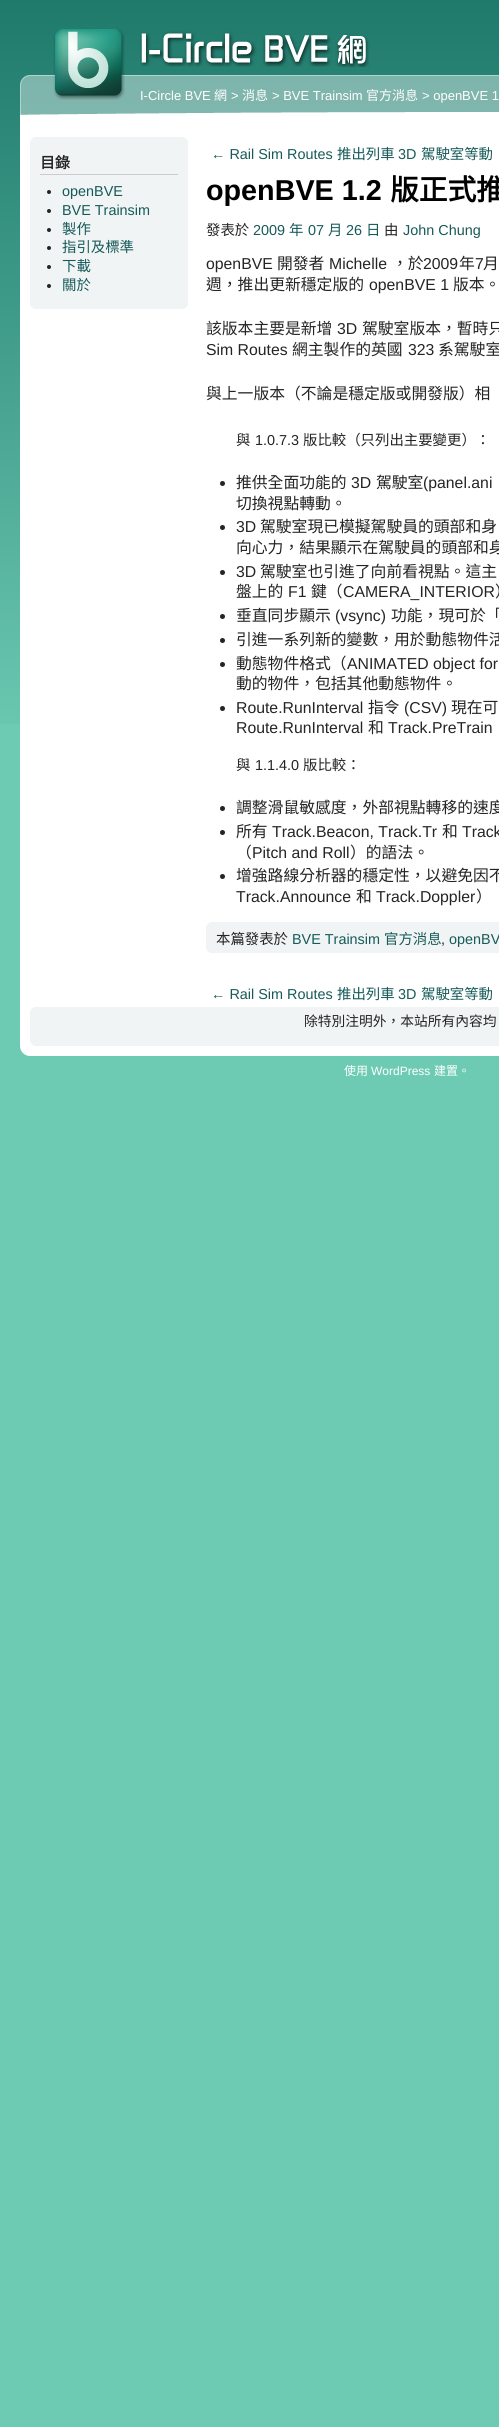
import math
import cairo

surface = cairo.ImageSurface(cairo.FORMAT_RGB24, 499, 2427)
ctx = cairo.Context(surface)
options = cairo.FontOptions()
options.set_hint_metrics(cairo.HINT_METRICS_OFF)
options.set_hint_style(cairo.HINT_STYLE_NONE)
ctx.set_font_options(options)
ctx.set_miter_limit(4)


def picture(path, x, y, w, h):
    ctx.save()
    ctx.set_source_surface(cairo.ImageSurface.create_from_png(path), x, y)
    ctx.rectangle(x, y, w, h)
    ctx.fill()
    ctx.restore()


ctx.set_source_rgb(0.431, 0.796, 0.702)
ctx.paint()
picture("img1.png", 0, 0, 499, 724)
picture("img4.png", 20, 112, 479, 20)
ctx.set_source_rgb(1, 1, 1)
ctx.new_path()
ctx.move_to(20, 132)
ctx.line_to(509, 132)
ctx.line_to(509, 1046)
ctx.curve_to(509, 1051.5, 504.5, 1056, 499, 1056)
ctx.line_to(30, 1056)
ctx.curve_to(24.5, 1056, 20, 1051.5, 20, 1046)
ctx.close_path()
ctx.fill()
ctx.set_source_rgba(1, 1, 1, 0.4)
ctx.new_path()
ctx.move_to(30, 75)
ctx.line_to(499, 75)
ctx.curve_to(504.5, 75, 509, 79.5, 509, 85)
ctx.line_to(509, 137)
ctx.line_to(20, 137)
ctx.line_to(20, 85)
ctx.curve_to(20, 79.5, 24.5, 75, 30, 75)
ctx.close_path()
ctx.fill()
ctx.new_path()
ctx.move_to(30, 75.5)
ctx.line_to(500, 75.5)
ctx.curve_to(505, 75.5, 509.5, 80, 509.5, 85)
ctx.line_to(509.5, 136.5)
ctx.line_to(20.5, 136.5)
ctx.line_to(20.5, 85)
ctx.curve_to(20.5, 80, 25, 75.5, 30, 75.5)
ctx.close_path()
ctx.set_line_width(1)
ctx.stroke()
picture("img2.png", 53, 29, 72, 71)
picture("img3.png", 140, 31, 230, 36)
ctx.select_font_face("Liberation Sans")
ctx.set_font_size(13)
ctx.set_source_rgb(1, 1, 1)
ctx.move_to(140, 100)
ctx.show_text("I-Circle BVE")
ctx.select_font_face("Noto Sans CJK TC")
ctx.move_to(214, 100)
ctx.show_text("網")
ctx.select_font_face("Liberation Sans")
ctx.move_to(231, 100)
ctx.show_text(">")
ctx.select_font_face("Noto Sans CJK TC")
ctx.move_to(242, 100)
ctx.show_text("消息")
ctx.select_font_face("Liberation Sans")
ctx.move_to(272, 100)
ctx.show_text("> BVE Trainsim")
ctx.select_font_face("Noto Sans CJK TC")
ctx.move_to(366, 100)
ctx.show_text("官方消息")
ctx.select_font_face("Liberation Sans")
ctx.move_to(422, 100)
ctx.show_text("> openBVE 1")
ctx.set_source_rgb(0.941, 0.957, 0.957)
ctx.rectangle(30, 137, 158, 172)
ctx.fill()
picture("img5.png", 30, 137, 4, 4)
picture("img6.png", 184, 137, 4, 4)
ctx.set_source_rgb(0.8, 0.8, 0.8)
ctx.rectangle(40, 174, 138, 1)
ctx.fill()
ctx.select_font_face("Noto Sans CJK TC", cairo.FONT_SLANT_NORMAL, cairo.FONT_WEIGHT_BOLD)
ctx.set_font_size(15)
ctx.set_source_rgb(0.141, 0.141, 0.141)
ctx.move_to(40, 168)
ctx.show_text("目錄")
ctx.new_path()
ctx.arc(49, 192, 2, 0, 2 * math.pi)
ctx.fill()
ctx.select_font_face("Liberation Sans")
ctx.set_font_size(14.4)
ctx.set_source_rgb(0.086, 0.353, 0.349)
ctx.move_to(62, 196)
ctx.show_text("openBVE")
ctx.set_source_rgb(0.141, 0.141, 0.141)
ctx.new_path()
ctx.arc(49, 211, 2, 0, 2 * math.pi)
ctx.fill()
ctx.set_source_rgb(0.086, 0.353, 0.349)
ctx.move_to(62, 215)
ctx.show_text("BVE Trainsim")
ctx.set_source_rgb(0.141, 0.141, 0.141)
ctx.new_path()
ctx.arc(49, 230, 2, 0, 2 * math.pi)
ctx.fill()
ctx.select_font_face("Noto Sans CJK TC")
ctx.set_source_rgb(0.086, 0.353, 0.349)
ctx.move_to(62, 234)
ctx.show_text("製作")
ctx.set_source_rgb(0.141, 0.141, 0.141)
ctx.new_path()
ctx.arc(49, 248, 2, 0, 2 * math.pi)
ctx.fill()
ctx.set_source_rgb(0.086, 0.353, 0.349)
ctx.move_to(62, 252)
ctx.show_text("指引及標準")
ctx.set_source_rgb(0.141, 0.141, 0.141)
ctx.new_path()
ctx.arc(49, 267, 2, 0, 2 * math.pi)
ctx.fill()
ctx.set_source_rgb(0.086, 0.353, 0.349)
ctx.move_to(62, 271)
ctx.show_text("下載")
ctx.set_source_rgb(0.141, 0.141, 0.141)
ctx.new_path()
ctx.arc(49, 286, 2, 0, 2 * math.pi)
ctx.fill()
ctx.set_source_rgb(0.086, 0.353, 0.349)
ctx.move_to(62, 290)
ctx.show_text("關於")
picture("img7.png", 30, 305, 4, 4)
picture("img8.png", 184, 305, 4, 4)
ctx.select_font_face("Liberation Sans")
ctx.move_to(211, 159)
ctx.show_text("← Rail Sim Routes")
ctx.select_font_face("Noto Sans CJK TC")
ctx.move_to(337, 159)
ctx.show_text("推出列車")
ctx.select_font_face("Liberation Sans")
ctx.move_to(398, 159)
ctx.show_text("3D")
ctx.select_font_face("Noto Sans CJK TC")
ctx.move_to(421, 159)
ctx.show_text("駕駛室等動")
ctx.select_font_face("Liberation Sans", cairo.FONT_SLANT_NORMAL, cairo.FONT_WEIGHT_BOLD)
ctx.set_font_size(28.75)
ctx.set_source_rgb(0, 0, 0)
ctx.move_to(206, 200)
ctx.show_text("openBVE 1.2")
ctx.select_font_face("Noto Sans CJK TC", cairo.FONT_SLANT_NORMAL, cairo.FONT_WEIGHT_BOLD)
ctx.move_to(390, 200)
ctx.show_text("版正式推")
ctx.select_font_face("Noto Sans CJK TC")
ctx.set_font_size(14.4)
ctx.set_source_rgb(0.141, 0.141, 0.141)
ctx.move_to(206, 235)
ctx.show_text("發表於")
ctx.select_font_face("Liberation Sans")
ctx.set_source_rgb(0.086, 0.353, 0.349)
ctx.move_to(253, 235)
ctx.show_text("2009")
ctx.select_font_face("Noto Sans CJK TC")
ctx.move_to(289, 235)
ctx.show_text("年")
ctx.select_font_face("Liberation Sans")
ctx.move_to(308, 235)
ctx.show_text("07")
ctx.select_font_face("Noto Sans CJK TC")
ctx.move_to(328, 235)
ctx.show_text("月")
ctx.select_font_face("Liberation Sans")
ctx.move_to(346, 235)
ctx.show_text("26")
ctx.select_font_face("Noto Sans CJK TC")
ctx.move_to(366, 235)
ctx.show_text("日")
ctx.set_source_rgb(0.141, 0.141, 0.141)
ctx.move_to(384, 235)
ctx.show_text("由")
ctx.select_font_face("Liberation Sans")
ctx.set_source_rgb(0.086, 0.353, 0.349)
ctx.move_to(403, 235)
ctx.show_text("John Chung")
ctx.set_font_size(15.8)
ctx.set_source_rgb(0.141, 0.141, 0.141)
ctx.move_to(206, 269)
ctx.show_text("openBVE")
ctx.select_font_face("Noto Sans CJK TC")
ctx.move_to(277, 269)
ctx.show_text("開發者")
ctx.select_font_face("Liberation Sans")
ctx.move_to(329, 269)
ctx.show_text("Michelle")
ctx.select_font_face("Noto Sans CJK TC")
ctx.move_to(392, 269)
ctx.show_text("，於")
ctx.select_font_face("Liberation Sans")
ctx.move_to(423, 269)
ctx.show_text("2009")
ctx.select_font_face("Noto Sans CJK TC")
ctx.move_to(459, 269)
ctx.show_text("年")
ctx.select_font_face("Liberation Sans")
ctx.move_to(475, 269)
ctx.show_text("7")
ctx.select_font_face("Noto Sans CJK TC")
ctx.move_to(483, 269)
ctx.show_text("月")
ctx.move_to(206, 290)
ctx.show_text("週，推出更新穩定版的")
ctx.select_font_face("Liberation Sans")
ctx.move_to(369, 290)
ctx.show_text("openBVE 1")
ctx.select_font_face("Noto Sans CJK TC")
ctx.move_to(453, 290)
ctx.show_text("版本。")
ctx.move_to(206, 334)
ctx.show_text("該版本主要是新增")
ctx.select_font_face("Liberation Sans")
ctx.move_to(337, 334)
ctx.show_text("3D")
ctx.select_font_face("Noto Sans CJK TC")
ctx.move_to(362, 334)
ctx.show_text("駕駛室版本，暫時只")
ctx.select_font_face("Liberation Sans")
ctx.move_to(206, 355)
ctx.show_text("Sim Routes")
ctx.select_font_face("Noto Sans CJK TC")
ctx.move_to(292, 355)
ctx.show_text("網主製作的英國")
ctx.select_font_face("Liberation Sans")
ctx.move_to(408, 355)
ctx.show_text("323")
ctx.select_font_face("Noto Sans CJK TC")
ctx.move_to(438, 355)
ctx.show_text("系駕駛室")
ctx.move_to(206, 399)
ctx.show_text("與上一版本（不論是穩定版或開發版）相")
ctx.set_font_size(14.4)
ctx.move_to(236, 445)
ctx.show_text("與")
ctx.select_font_face("Liberation Sans")
ctx.move_to(255, 445)
ctx.show_text("1.0.7.3")
ctx.select_font_face("Noto Sans CJK TC")
ctx.move_to(303, 445)
ctx.show_text("版比較（只列出主要變更）：")
ctx.new_path()
ctx.arc(222.5, 483.5, 2.5, 0, 2 * math.pi)
ctx.fill()
ctx.set_font_size(15.8)
ctx.move_to(236, 488)
ctx.show_text("推供全面功能的")
ctx.select_font_face("Liberation Sans")
ctx.move_to(351, 488)
ctx.show_text("3D")
ctx.select_font_face("Noto Sans CJK TC")
ctx.move_to(376, 488)
ctx.show_text("駕駛室")
ctx.select_font_face("Liberation Sans")
ctx.move_to(423, 488)
ctx.show_text("(panel.ani")
ctx.select_font_face("Noto Sans CJK TC")
ctx.move_to(236, 509)
ctx.show_text("切換視點轉動。")
ctx.new_path()
ctx.arc(222.5, 527.5, 2.5, 0, 2 * math.pi)
ctx.fill()
ctx.select_font_face("Liberation Sans")
ctx.move_to(236, 532)
ctx.show_text("3D")
ctx.select_font_face("Noto Sans CJK TC")
ctx.move_to(260, 532)
ctx.show_text("駕駛室現已模擬駕駛員的頭部和身")
ctx.move_to(236, 553)
ctx.show_text("向心力，結果顯示在駕駛員的頭部和身")
ctx.new_path()
ctx.arc(222.5, 572.5, 2.5, 0, 2 * math.pi)
ctx.fill()
ctx.select_font_face("Liberation Sans")
ctx.move_to(236, 577)
ctx.show_text("3D")
ctx.select_font_face("Noto Sans CJK TC")
ctx.move_to(260, 577)
ctx.show_text("駕駛室也引進了向前看視點。這主")
ctx.move_to(236, 597)
ctx.show_text("盤上的")
ctx.select_font_face("Liberation Sans")
ctx.move_to(288, 597)
ctx.show_text("F1")
ctx.select_font_face("Noto Sans CJK TC")
ctx.move_to(311, 597)
ctx.show_text("鍵（")
ctx.select_font_face("Liberation Sans")
ctx.move_to(343, 597)
ctx.show_text("CAMERA_INTERIOR")
ctx.select_font_face("Noto Sans CJK TC")
ctx.move_to(495, 597)
ctx.show_text("）")
ctx.new_path()
ctx.arc(222.5, 616.5, 2.5, 0, 2 * math.pi)
ctx.fill()
ctx.move_to(236, 621)
ctx.show_text("垂直同步顯示")
ctx.select_font_face("Liberation Sans")
ctx.move_to(335, 621)
ctx.show_text("(vsync)")
ctx.select_font_face("Noto Sans CJK TC")
ctx.move_to(391, 621)
ctx.show_text("功能，現可於「")
ctx.new_path()
ctx.arc(222.5, 640.5, 2.5, 0, 2 * math.pi)
ctx.fill()
ctx.move_to(236, 645)
ctx.show_text("引進一系列新的變數，用於動態物件活")
ctx.new_path()
ctx.arc(222.5, 664.5, 2.5, 0, 2 * math.pi)
ctx.fill()
ctx.move_to(236, 669)
ctx.show_text("動態物件格式（")
ctx.select_font_face("Liberation Sans")
ctx.move_to(347, 669)
ctx.show_text("ANIMATED object for")
ctx.select_font_face("Noto Sans CJK TC")
ctx.move_to(236, 689)
ctx.show_text("動的物件，包括其他動態物件。")
ctx.new_path()
ctx.arc(222.5, 708.5, 2.5, 0, 2 * math.pi)
ctx.fill()
ctx.select_font_face("Liberation Sans")
ctx.move_to(236, 713)
ctx.show_text("Route.RunInterval")
ctx.select_font_face("Noto Sans CJK TC")
ctx.move_to(368, 713)
ctx.show_text("指令")
ctx.select_font_face("Liberation Sans")
ctx.move_to(404, 713)
ctx.show_text("(CSV)")
ctx.select_font_face("Noto Sans CJK TC")
ctx.move_to(451, 713)
ctx.show_text("現在可")
ctx.select_font_face("Liberation Sans")
ctx.move_to(236, 733)
ctx.show_text("Route.RunInterval")
ctx.select_font_face("Noto Sans CJK TC")
ctx.move_to(368, 733)
ctx.show_text("和")
ctx.select_font_face("Liberation Sans")
ctx.move_to(388, 733)
ctx.show_text("Track.PreTrain")
ctx.select_font_face("Noto Sans CJK TC")
ctx.set_font_size(14.4)
ctx.move_to(236, 770)
ctx.show_text("與")
ctx.select_font_face("Liberation Sans")
ctx.move_to(255, 770)
ctx.show_text("1.1.4.0")
ctx.select_font_face("Noto Sans CJK TC")
ctx.move_to(303, 770)
ctx.show_text("版比較：")
ctx.new_path()
ctx.arc(222.5, 808.5, 2.5, 0, 2 * math.pi)
ctx.fill()
ctx.set_font_size(15.8)
ctx.move_to(236, 813)
ctx.show_text("調整滑鼠敏感度，外部視點轉移的速度")
ctx.new_path()
ctx.arc(222.5, 832.5, 2.5, 0, 2 * math.pi)
ctx.fill()
ctx.move_to(236, 837)
ctx.show_text("所有")
ctx.select_font_face("Liberation Sans")
ctx.move_to(272, 837)
ctx.show_text("Track.Beacon, Track.Tr")
ctx.select_font_face("Noto Sans CJK TC")
ctx.move_to(442, 837)
ctx.show_text("和")
ctx.select_font_face("Liberation Sans")
ctx.move_to(462, 837)
ctx.show_text("Track")
ctx.select_font_face("Noto Sans CJK TC")
ctx.move_to(236, 858)
ctx.show_text("（")
ctx.select_font_face("Liberation Sans")
ctx.move_to(252, 858)
ctx.show_text("Pitch and Roll")
ctx.select_font_face("Noto Sans CJK TC")
ctx.move_to(350, 858)
ctx.show_text("）的語法。")
ctx.new_path()
ctx.arc(222.5, 876.5, 2.5, 0, 2 * math.pi)
ctx.fill()
ctx.move_to(236, 881)
ctx.show_text("增強路線分析器的穩定性，以避免因不")
ctx.select_font_face("Liberation Sans")
ctx.move_to(236, 902)
ctx.show_text("Track.Announce")
ctx.select_font_face("Noto Sans CJK TC")
ctx.move_to(356, 902)
ctx.show_text("和")
ctx.select_font_face("Liberation Sans")
ctx.move_to(376, 902)
ctx.show_text("Track.Doppler")
ctx.select_font_face("Noto Sans CJK TC")
ctx.move_to(476, 902)
ctx.show_text("）")
ctx.set_source_rgb(0.941, 0.957, 0.957)
ctx.rectangle(206, 922, 293, 31)
ctx.fill()
picture("img5.png", 206, 922, 4, 4)
ctx.set_font_size(14.4)
ctx.set_source_rgb(0.141, 0.141, 0.141)
ctx.move_to(216, 944)
ctx.show_text("本篇發表於")
ctx.select_font_face("Liberation Sans")
ctx.set_source_rgb(0.086, 0.353, 0.349)
ctx.move_to(292, 944)
ctx.show_text("BVE Trainsim")
ctx.select_font_face("Noto Sans CJK TC")
ctx.move_to(384, 944)
ctx.show_text("官方消息")
ctx.select_font_face("Liberation Sans")
ctx.set_source_rgb(0.141, 0.141, 0.141)
ctx.move_to(441, 944)
ctx.show_text(",")
ctx.set_source_rgb(0.086, 0.353, 0.349)
ctx.move_to(449, 944)
ctx.show_text("openBV")
picture("img7.png", 206, 949, 4, 4)
ctx.move_to(211, 999)
ctx.show_text("← Rail Sim Routes")
ctx.select_font_face("Noto Sans CJK TC")
ctx.move_to(337, 999)
ctx.show_text("推出列車")
ctx.select_font_face("Liberation Sans")
ctx.move_to(398, 999)
ctx.show_text("3D")
ctx.select_font_face("Noto Sans CJK TC")
ctx.move_to(421, 999)
ctx.show_text("駕駛室等動")
ctx.set_source_rgb(0.941, 0.957, 0.957)
ctx.rectangle(30, 1007, 469, 39)
ctx.fill()
picture("img5.png", 30, 1007, 4, 4)
ctx.set_font_size(13.75)
ctx.set_source_rgb(0.141, 0.141, 0.141)
ctx.move_to(304, 1026)
ctx.show_text("除特別注明外，本站所有內容均")
picture("img7.png", 30, 1042, 4, 4)
ctx.set_font_size(12)
ctx.set_source_rgb(1, 1, 1)
ctx.move_to(344, 1075)
ctx.show_text("使用")
ctx.select_font_face("Liberation Sans")
ctx.move_to(371, 1075)
ctx.show_text("WordPress")
ctx.select_font_face("Noto Sans CJK TC")
ctx.move_to(434, 1075)
ctx.show_text("建置。")
surface.write_to_png("page.png")
